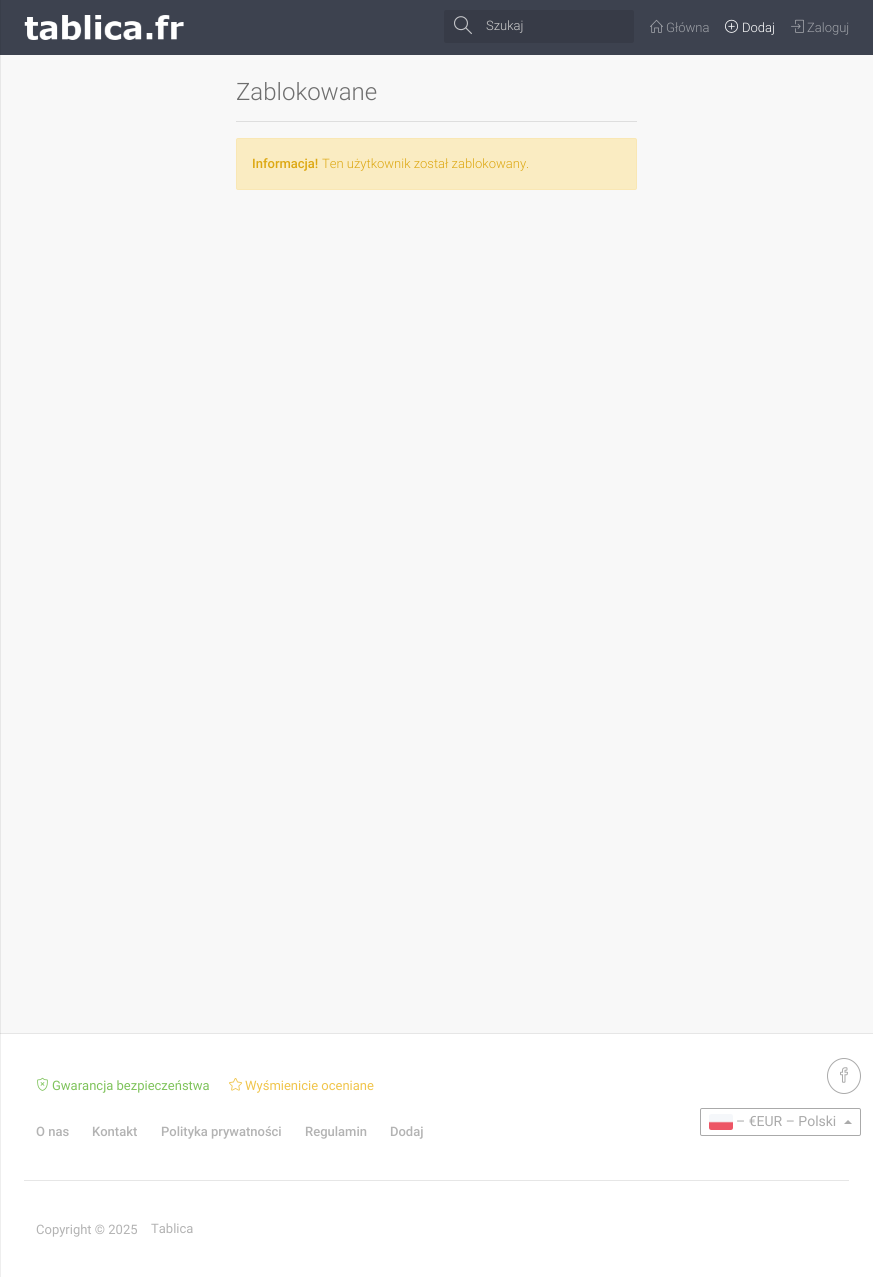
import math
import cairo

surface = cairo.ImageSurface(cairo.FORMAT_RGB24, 873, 1277)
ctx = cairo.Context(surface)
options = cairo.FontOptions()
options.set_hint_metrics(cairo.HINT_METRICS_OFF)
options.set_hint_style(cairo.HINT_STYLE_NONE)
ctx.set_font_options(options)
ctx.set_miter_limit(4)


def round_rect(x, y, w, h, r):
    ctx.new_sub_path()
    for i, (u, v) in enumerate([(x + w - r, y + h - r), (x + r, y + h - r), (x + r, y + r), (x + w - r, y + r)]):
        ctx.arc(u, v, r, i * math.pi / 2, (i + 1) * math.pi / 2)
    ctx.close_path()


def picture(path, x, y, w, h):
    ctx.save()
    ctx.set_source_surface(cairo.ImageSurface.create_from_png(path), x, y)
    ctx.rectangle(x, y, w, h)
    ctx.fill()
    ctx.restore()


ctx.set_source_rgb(0.969, 0.969, 0.969)
ctx.paint()
ctx.set_source_rgb(0.239, 0.259, 0.31)
ctx.rectangle(0, 0, 873, 55)
ctx.fill()
ctx.set_source_rgb(1, 1, 1)
ctx.rectangle(0, 1034, 873, 243)
ctx.fill()
ctx.set_source_rgb(0.902, 0.902, 0.902)
ctx.rectangle(0, 1033, 873, 1)
ctx.fill()
ctx.rectangle(-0.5, -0.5, 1, 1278)
ctx.set_source_rgba(0, 0, 0, 0.07)
ctx.set_line_width(1)
ctx.stroke()
picture("img1.png", 24, 15, 160, 25)
ctx.set_source_rgb(0.216, 0.231, 0.278)
round_rect(444, 10, 190, 33, 2)
ctx.fill()
picture("img2.png", 454, 16, 18, 19)
ctx.select_font_face("Roboto Light")
ctx.set_font_size(13)
ctx.set_source_rgb(0.8, 0.8, 0.8)
ctx.move_to(486, 30)
ctx.show_text("Szukaj")
picture("img3.png", 650, 19, 13, 14)
ctx.set_source_rgb(0.62, 0.631, 0.655)
ctx.move_to(666, 32)
ctx.show_text("Główna")
picture("img4.png", 725, 19, 13, 14)
ctx.set_source_rgb(1, 1, 1)
ctx.move_to(742, 32)
ctx.show_text("Dodaj")
picture("img5.png", 791, 19, 13, 14)
ctx.set_source_rgb(0.62, 0.631, 0.655)
ctx.move_to(807, 32)
ctx.show_text("Zaloguj")
ctx.set_font_size(24)
ctx.set_source_rgb(0.431, 0.431, 0.431)
ctx.move_to(236, 100)
ctx.show_text("Zablokowane")
ctx.set_source_rgb(0.871, 0.871, 0.871)
ctx.rectangle(236, 121, 401, 1)
ctx.fill()
ctx.set_source_rgb(0.98, 0.922, 0.761)
round_rect(236.5, 138.5, 400, 51, 1.5)
ctx.fill_preserve()
ctx.set_source_rgb(0.976, 0.906, 0.706)
ctx.stroke()
ctx.select_font_face("Roboto Medium")
ctx.set_font_size(13)
ctx.set_source_rgb(0.867, 0.659, 0.075)
ctx.move_to(252, 168)
ctx.show_text("Informacja!")
ctx.select_font_face("Roboto Light")
ctx.move_to(322, 168)
ctx.show_text("Ten użytkownik został zablokowany.")
picture("img6.png", 37, 1077, 11, 14)
ctx.select_font_face("Roboto")
ctx.set_source_rgb(0.498, 0.765, 0.361)
ctx.move_to(52, 1090)
ctx.show_text("Gwarancja bezpieczeństwa")
picture("img7.png", 229, 1078, 13, 13)
ctx.set_source_rgb(0.941, 0.773, 0.298)
ctx.move_to(245, 1090)
ctx.show_text("Wyśmienicie oceniane")
ctx.new_path()
ctx.move_to(844, 1058.5)
ctx.curve_to(853, 1058.5, 860.5, 1066.5, 860.5, 1076)
ctx.curve_to(860.5, 1085.5, 853, 1093.5, 844, 1093.5)
ctx.curve_to(835, 1093.5, 827.5, 1085.5, 827.5, 1076)
ctx.curve_to(827.5, 1066.5, 835, 1058.5, 844, 1058.5)
ctx.close_path()
ctx.set_source_rgb(0.667, 0.667, 0.667)
ctx.stroke()
picture("img8.png", 840, 1067, 8, 16)
round_rect(700.5, 1108.5, 160, 27, 1.5)
ctx.stroke()
picture("img9.png", 709, 1114, 24, 16)
ctx.set_font_size(14)
ctx.move_to(736, 1126)
ctx.show_text("– €EUR – Polski")
ctx.new_path()
ctx.move_to(852, 1124)
ctx.line_to(844, 1124)
ctx.line_to(848, 1120)
ctx.close_path()
ctx.fill()
ctx.select_font_face("Roboto Medium")
ctx.set_font_size(13)
ctx.set_source_rgb(0.702, 0.702, 0.702)
ctx.move_to(36, 1136)
ctx.show_text("O nas")
ctx.move_to(92, 1136)
ctx.show_text("Kontakt")
ctx.move_to(161, 1136)
ctx.show_text("Polityka prywatności")
ctx.move_to(305, 1136)
ctx.show_text("Regulamin")
ctx.move_to(390, 1136)
ctx.show_text("Dodaj")
ctx.set_source_rgb(0.902, 0.902, 0.902)
ctx.rectangle(24, 1180, 825, 1)
ctx.fill()
ctx.select_font_face("Roboto")
ctx.set_source_rgb(0.702, 0.702, 0.702)
ctx.move_to(36, 1234)
ctx.show_text("Copyright © 2025")
ctx.move_to(151, 1233)
ctx.show_text("Tablica")
surface.write_to_png("page.png")
